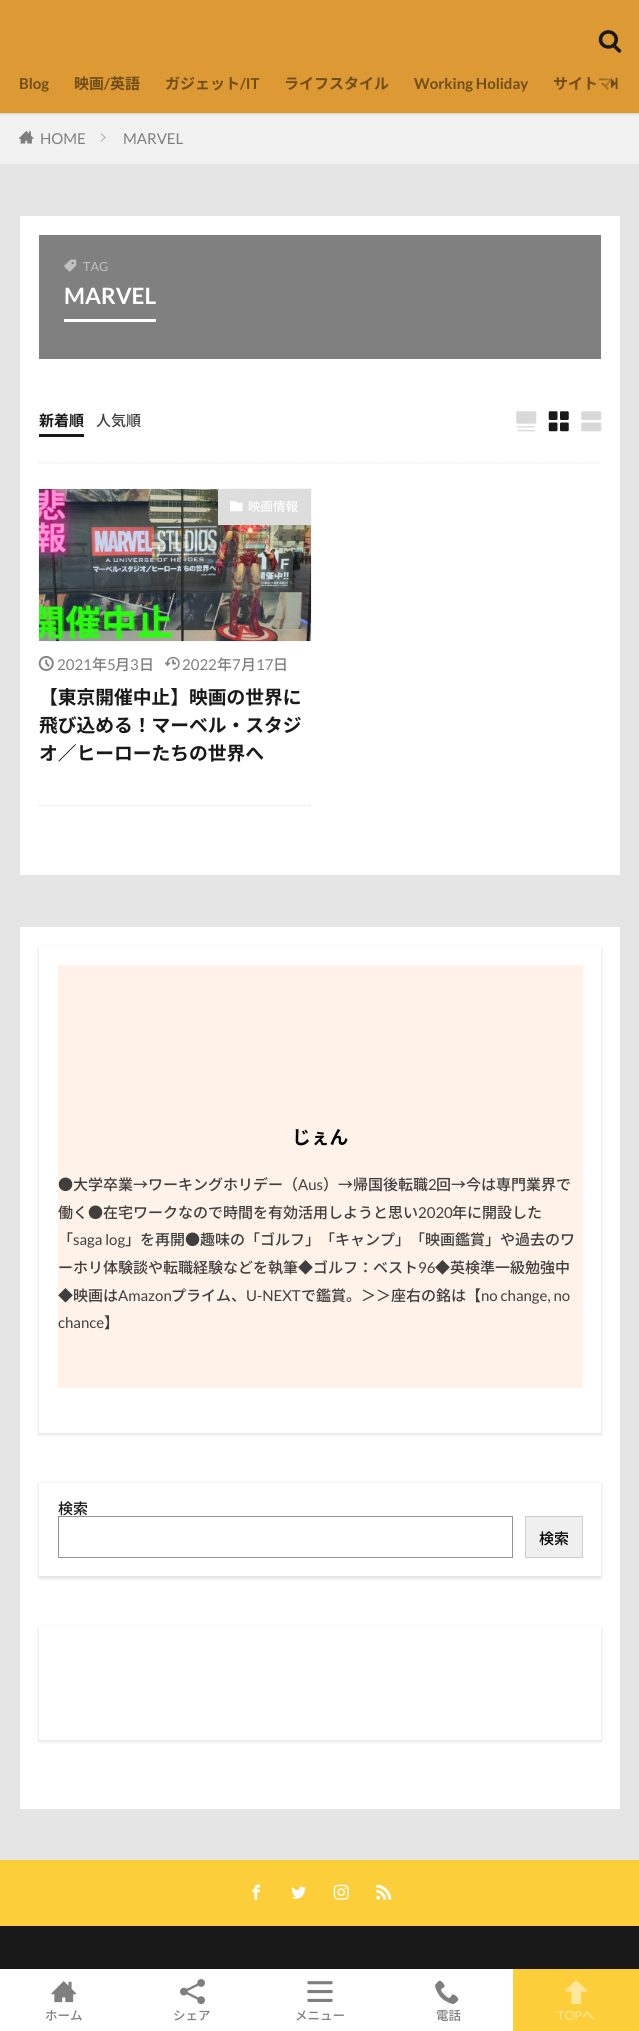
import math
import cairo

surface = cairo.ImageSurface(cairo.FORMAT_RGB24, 639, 2031)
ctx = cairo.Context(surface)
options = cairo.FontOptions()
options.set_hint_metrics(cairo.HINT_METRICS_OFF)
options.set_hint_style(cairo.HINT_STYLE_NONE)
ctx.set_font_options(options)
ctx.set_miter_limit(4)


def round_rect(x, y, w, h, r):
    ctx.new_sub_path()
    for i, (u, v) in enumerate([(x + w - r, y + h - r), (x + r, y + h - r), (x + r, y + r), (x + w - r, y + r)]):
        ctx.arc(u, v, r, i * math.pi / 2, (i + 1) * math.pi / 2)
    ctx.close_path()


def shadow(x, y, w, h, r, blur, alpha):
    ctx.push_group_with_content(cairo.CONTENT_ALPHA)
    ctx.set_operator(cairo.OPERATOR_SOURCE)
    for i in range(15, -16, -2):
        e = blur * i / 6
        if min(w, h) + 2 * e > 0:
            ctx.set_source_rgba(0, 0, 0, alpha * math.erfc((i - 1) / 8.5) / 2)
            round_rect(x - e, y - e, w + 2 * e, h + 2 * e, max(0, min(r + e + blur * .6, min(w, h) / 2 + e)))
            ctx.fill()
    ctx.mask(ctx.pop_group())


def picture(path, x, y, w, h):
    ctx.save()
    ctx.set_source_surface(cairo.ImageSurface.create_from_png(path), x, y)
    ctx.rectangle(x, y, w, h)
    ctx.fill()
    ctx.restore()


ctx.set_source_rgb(0.898, 0.898, 0.898)
ctx.paint()
ctx.set_source_rgb(0.949, 0.949, 0.949)
ctx.rectangle(0, 113, 639, 51)
ctx.fill()
ctx.set_source_rgb(0, 0, 0)
shadow(0, 1, 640, 113, 0, 1, 0.15)
ctx.set_source_rgb(0.867, 0.6, 0.2)
ctx.rectangle(0, 0, 639, 113)
ctx.fill()
picture("img1.png", 598, 30, 24, 23)
ctx.select_font_face("Lato", cairo.FONT_SLANT_NORMAL, cairo.FONT_WEIGHT_BOLD)
ctx.set_font_size(15)
ctx.set_source_rgb(0.435, 0.302, 0.102)
ctx.move_to(19, 89)
ctx.show_text("Blog")
ctx.select_font_face("Noto Sans JP", cairo.FONT_SLANT_NORMAL, cairo.FONT_WEIGHT_BOLD)
ctx.move_to(74, 89)
ctx.show_text("映画")
ctx.select_font_face("Lato", cairo.FONT_SLANT_NORMAL, cairo.FONT_WEIGHT_BOLD)
ctx.move_to(104, 89)
ctx.show_text("/")
ctx.select_font_face("Noto Sans JP", cairo.FONT_SLANT_NORMAL, cairo.FONT_WEIGHT_BOLD)
ctx.move_to(110, 89)
ctx.show_text("英語")
ctx.move_to(165, 89)
ctx.show_text("ガジェット")
ctx.select_font_face("Lato", cairo.FONT_SLANT_NORMAL, cairo.FONT_WEIGHT_BOLD)
ctx.move_to(240, 89)
ctx.show_text("/IT")
ctx.select_font_face("Noto Sans JP", cairo.FONT_SLANT_NORMAL, cairo.FONT_WEIGHT_BOLD)
ctx.move_to(284, 89)
ctx.show_text("ライフスタイル")
ctx.select_font_face("Lato", cairo.FONT_SLANT_NORMAL, cairo.FONT_WEIGHT_BOLD)
ctx.move_to(414, 89)
ctx.show_text("Working Holiday")
ctx.select_font_face("Noto Sans JP", cairo.FONT_SLANT_NORMAL, cairo.FONT_WEIGHT_BOLD)
ctx.move_to(553, 89)
ctx.show_text("サイトマ")
gradient = cairo.LinearGradient(590, 69, 621, 69)
gradient.add_color_stop_rgba(0, 0.867, 0.6, 0.2, 0)
gradient.add_color_stop_rgba(1, 0.867, 0.6, 0.2, 1)
ctx.set_source(gradient)
ctx.rectangle(591, 78, 22, 12)
ctx.fill()
picture("img2.png", 610, 77, 8, 13)
picture("img3.png", 18, 131, 16, 13)
ctx.select_font_face("Lato")
ctx.set_source_rgb(0.498, 0.498, 0.498)
ctx.move_to(40, 144)
ctx.show_text("HOME")
ctx.set_source_rgb(0.749, 0.749, 0.749)
ctx.new_path()
ctx.move_to(101.5, 133)
ctx.line_to(106, 137.5)
ctx.line_to(105, 138.5)
ctx.line_to(100.5, 134)
ctx.close_path()
ctx.fill()
ctx.new_path()
ctx.move_to(105, 136.5)
ctx.line_to(106, 137.5)
ctx.line_to(101.5, 142)
ctx.line_to(100.5, 141)
ctx.close_path()
ctx.fill()
ctx.set_source_rgb(0.498, 0.498, 0.498)
ctx.move_to(123, 144)
ctx.show_text("MARVEL")
ctx.set_source_rgb(1, 1, 1)
ctx.rectangle(20, 216, 600, 659)
ctx.fill()
ctx.set_source_rgb(0.502, 0.502, 0.502)
ctx.rectangle(39, 235, 562, 124)
ctx.fill()
picture("img4.png", 64, 259, 13, 13)
ctx.set_font_size(12.5)
ctx.set_source_rgb(0.753, 0.753, 0.753)
ctx.move_to(83, 271)
ctx.show_text("TAG")
ctx.set_source_rgb(1, 1, 1)
ctx.rectangle(64, 319, 92, 3)
ctx.fill()
ctx.select_font_face("Lato", cairo.FONT_SLANT_NORMAL, cairo.FONT_WEIGHT_BOLD)
ctx.set_font_size(22.5)
ctx.move_to(64, 304)
ctx.show_text("MARVEL")
ctx.new_path()
ctx.move_to(39, 463)
ctx.line_to(601, 463)
ctx.set_source_rgb(0.902, 0.902, 0.902)
ctx.set_line_width(1.2)
ctx.set_dash([1.25, 1.25])
ctx.stroke()
ctx.select_font_face("Noto Sans JP", cairo.FONT_SLANT_NORMAL, cairo.FONT_WEIGHT_BOLD)
ctx.set_font_size(15)
ctx.set_source_rgb(0.098, 0.098, 0.098)
ctx.move_to(39, 426)
ctx.show_text("新着順")
ctx.rectangle(39, 434, 45, 3)
ctx.fill()
ctx.select_font_face("Noto Sans JP Medium")
ctx.set_source_rgb(0.247, 0.247, 0.247)
ctx.move_to(96, 426)
ctx.show_text("人気順")
picture("img5.png", 516, 411, 21, 21)
picture("img6.png", 548, 411, 21, 21)
picture("img7.png", 581, 411, 21, 21)
ctx.new_path()
ctx.move_to(39, 805.5)
ctx.line_to(311, 805.5)
ctx.set_source_rgb(0.902, 0.902, 0.902)
ctx.stroke()
picture("img8.png", 38, 488, 274, 154)
ctx.set_source_rgb(0.867, 0.867, 0.867)
ctx.rectangle(218, 489, 93, 36)
ctx.fill()
picture("img9.png", 230, 501, 13, 11)
ctx.set_font_size(12.5)
ctx.set_source_rgb(1, 1, 1)
ctx.move_to(248, 511)
ctx.show_text("映画情報")
picture("img10.png", 38, 656, 16, 15)
ctx.select_font_face("Lato")
ctx.set_font_size(15)
ctx.set_source_rgb(0.498, 0.498, 0.498)
ctx.move_to(57, 670)
ctx.show_text("2021")
ctx.select_font_face("Noto Sans JP Medium")
ctx.move_to(92, 670)
ctx.show_text("年")
ctx.select_font_face("Lato")
ctx.move_to(107, 670)
ctx.show_text("5")
ctx.select_font_face("Noto Sans JP Medium")
ctx.move_to(115, 670)
ctx.show_text("月")
ctx.select_font_face("Lato")
ctx.move_to(130, 670)
ctx.show_text("3")
ctx.select_font_face("Noto Sans JP Medium")
ctx.move_to(139, 670)
ctx.show_text("日")
picture("img11.png", 164, 656, 16, 14)
ctx.select_font_face("Lato")
ctx.move_to(182, 670)
ctx.show_text("2022")
ctx.select_font_face("Noto Sans JP Medium")
ctx.move_to(217, 670)
ctx.show_text("年")
ctx.select_font_face("Lato")
ctx.move_to(232, 670)
ctx.show_text("7")
ctx.select_font_face("Noto Sans JP Medium")
ctx.move_to(241, 670)
ctx.show_text("月")
ctx.select_font_face("Lato")
ctx.move_to(256, 670)
ctx.show_text("17")
ctx.select_font_face("Noto Sans JP Medium")
ctx.move_to(273, 670)
ctx.show_text("日")
ctx.select_font_face("Noto Sans JP", cairo.FONT_SLANT_NORMAL, cairo.FONT_WEIGHT_BOLD)
ctx.set_font_size(18.75)
ctx.set_source_rgb(0.098, 0.098, 0.098)
ctx.move_to(39, 704)
ctx.show_text("【東京開催中止】映画の世界に")
ctx.move_to(39, 732)
ctx.show_text("飛び込める！マーベル・スタジ")
ctx.move_to(39, 760)
ctx.show_text("オ／ヒーローたちの世界へ")
ctx.set_source_rgb(1, 1, 1)
ctx.rectangle(20, 927, 600, 882)
ctx.fill()
ctx.set_source_rgb(0, 0, 0)
shadow(39, 948, 562, 486, 0, 2, 0.15)
ctx.set_source_rgb(1, 1, 1)
ctx.rectangle(39, 946, 562, 487)
ctx.fill()
ctx.set_source_rgb(1, 0.949, 0.914)
ctx.rectangle(58, 965, 525, 423)
ctx.fill()
ctx.set_source_rgb(0, 0, 0)
ctx.move_to(292, 1144)
ctx.show_text("じぇん")
ctx.select_font_face("Noto Sans JP Medium")
ctx.set_font_size(15)
ctx.set_source_rgb(0.247, 0.247, 0.247)
ctx.move_to(58, 1190)
ctx.show_text("●大学卒業→ワーキングホリデー（")
ctx.select_font_face("Lato")
ctx.move_to(298, 1190)
ctx.show_text("Aus")
ctx.select_font_face("Noto Sans JP Medium")
ctx.move_to(323, 1190)
ctx.show_text("）→帰国後転職")
ctx.select_font_face("Lato")
ctx.move_to(428, 1190)
ctx.show_text("2")
ctx.select_font_face("Noto Sans JP Medium")
ctx.move_to(436, 1190)
ctx.show_text("回→今は専門業界で")
ctx.move_to(58, 1218)
ctx.show_text("働く●在宅ワークなので時間を有効活用しようと思い")
ctx.select_font_face("Lato")
ctx.move_to(418, 1218)
ctx.show_text("2020")
ctx.select_font_face("Noto Sans JP Medium")
ctx.move_to(452, 1218)
ctx.show_text("年に開設した")
ctx.move_to(58, 1245)
ctx.show_text("「")
ctx.select_font_face("Lato")
ctx.move_to(73, 1245)
ctx.show_text("saga log")
ctx.select_font_face("Noto Sans JP Medium")
ctx.move_to(125, 1245)
ctx.show_text("」を再開●趣味の「ゴルフ」「キャンプ」「映画鑑賞」や過去のワ")
ctx.move_to(58, 1273)
ctx.show_text("ーホリ体験談や転職経験などを執筆◆ゴルフ：ベスト")
ctx.select_font_face("Lato")
ctx.move_to(418, 1273)
ctx.show_text("96")
ctx.select_font_face("Noto Sans JP Medium")
ctx.move_to(435, 1273)
ctx.show_text("◆英検準一級勉強中")
ctx.move_to(58, 1301)
ctx.show_text("◆映画は")
ctx.select_font_face("Lato")
ctx.move_to(118, 1301)
ctx.show_text("Amazon")
ctx.select_font_face("Noto Sans JP Medium")
ctx.move_to(171, 1301)
ctx.show_text("プライム、")
ctx.select_font_face("Lato")
ctx.move_to(246, 1301)
ctx.show_text("U-NEXT")
ctx.select_font_face("Noto Sans JP Medium")
ctx.move_to(301, 1301)
ctx.show_text("で鑑賞。＞＞座右の銘は【")
ctx.select_font_face("Lato")
ctx.move_to(481, 1301)
ctx.show_text("no change, no")
ctx.move_to(58, 1328)
ctx.show_text("chance")
ctx.select_font_face("Noto Sans JP Medium")
ctx.move_to(104, 1328)
ctx.show_text("】")
ctx.save()
ctx.set_fill_rule(cairo.FILL_RULE_EVEN_ODD)
ctx.new_path()
ctx.move_to(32, 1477)
ctx.line_to(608, 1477)
ctx.line_to(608, 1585)
ctx.line_to(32, 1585)
ctx.close_path()
ctx.move_to(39, 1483)
ctx.line_to(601, 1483)
ctx.line_to(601, 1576)
ctx.line_to(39, 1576)
ctx.close_path()
ctx.clip()
ctx.set_source_rgb(0, 0, 0)
shadow(39, 1484, 562, 94, 0, 2, 0.15)
ctx.restore()
ctx.set_source_rgb(0.098, 0.098, 0.098)
ctx.move_to(58, 1514)
ctx.show_text("検索")
ctx.rectangle(58.5, 1516.5, 454, 41)
ctx.set_source_rgb(0.58, 0.58, 0.58)
ctx.set_line_width(1)
ctx.set_dash([])
ctx.stroke()
ctx.set_source_rgb(0.937, 0.937, 0.937)
ctx.rectangle(525.5, 1516.5, 57, 41)
ctx.fill_preserve()
ctx.set_source_rgb(0.8, 0.8, 0.8)
ctx.stroke()
ctx.set_source_rgb(0, 0, 0)
ctx.move_to(539, 1544)
ctx.show_text("検索")
ctx.set_source_rgb(0, 0, 0)
shadow(39, 1628, 562, 113, 0, 2, 0.15)
ctx.set_source_rgb(1, 1, 1)
ctx.rectangle(39, 1626, 562, 114)
ctx.fill()
ctx.set_source_rgb(0.988, 0.812, 0.227)
ctx.rectangle(0, 1860, 639, 66)
ctx.fill()
picture("img12.png", 252, 1884, 8, 16)
picture("img13.png", 291, 1886, 16, 13)
picture("img14.png", 333, 1884, 16, 16)
picture("img15.png", 376, 1884, 16, 16)
ctx.set_source_rgb(0.098, 0.098, 0.098)
ctx.rectangle(0, 1926, 639, 43)
ctx.fill()
ctx.set_source_rgb(1, 1, 1)
ctx.rectangle(0, 1969, 513, 62)
ctx.fill()
picture("img16.png", 51, 1981, 26, 22)
ctx.set_font_size(12.5)
ctx.set_source_rgb(0.498, 0.498, 0.498)
ctx.move_to(45, 2020)
ctx.show_text("ホーム")
picture("img17.png", 180, 1979, 25, 25)
ctx.move_to(173, 2020)
ctx.show_text("シェア")
picture("img18.png", 307, 1981, 26, 21)
ctx.move_to(295, 2020)
ctx.show_text("メニュー")
picture("img19.png", 435, 1980, 24, 24)
ctx.move_to(436, 2020)
ctx.show_text("電話")
ctx.set_source_rgb(0.988, 0.812, 0.227)
ctx.rectangle(513, 1969, 126, 62)
ctx.fill()
ctx.set_source_rgb(0.996, 0.906, 0.616)
ctx.new_path()
ctx.move_to(576, 1980)
ctx.line_to(564.5, 1991.5)
ctx.line_to(571.5, 1991.5)
ctx.line_to(571.5, 2004)
ctx.line_to(581, 2004)
ctx.line_to(581, 1991.5)
ctx.line_to(588, 1991.5)
ctx.close_path()
ctx.fill()
ctx.select_font_face("Lato")
ctx.move_to(557, 2020)
ctx.show_text("TOP")
ctx.select_font_face("Noto Sans JP Medium")
ctx.move_to(582, 2020)
ctx.show_text("へ")
surface.write_to_png("page.png")
